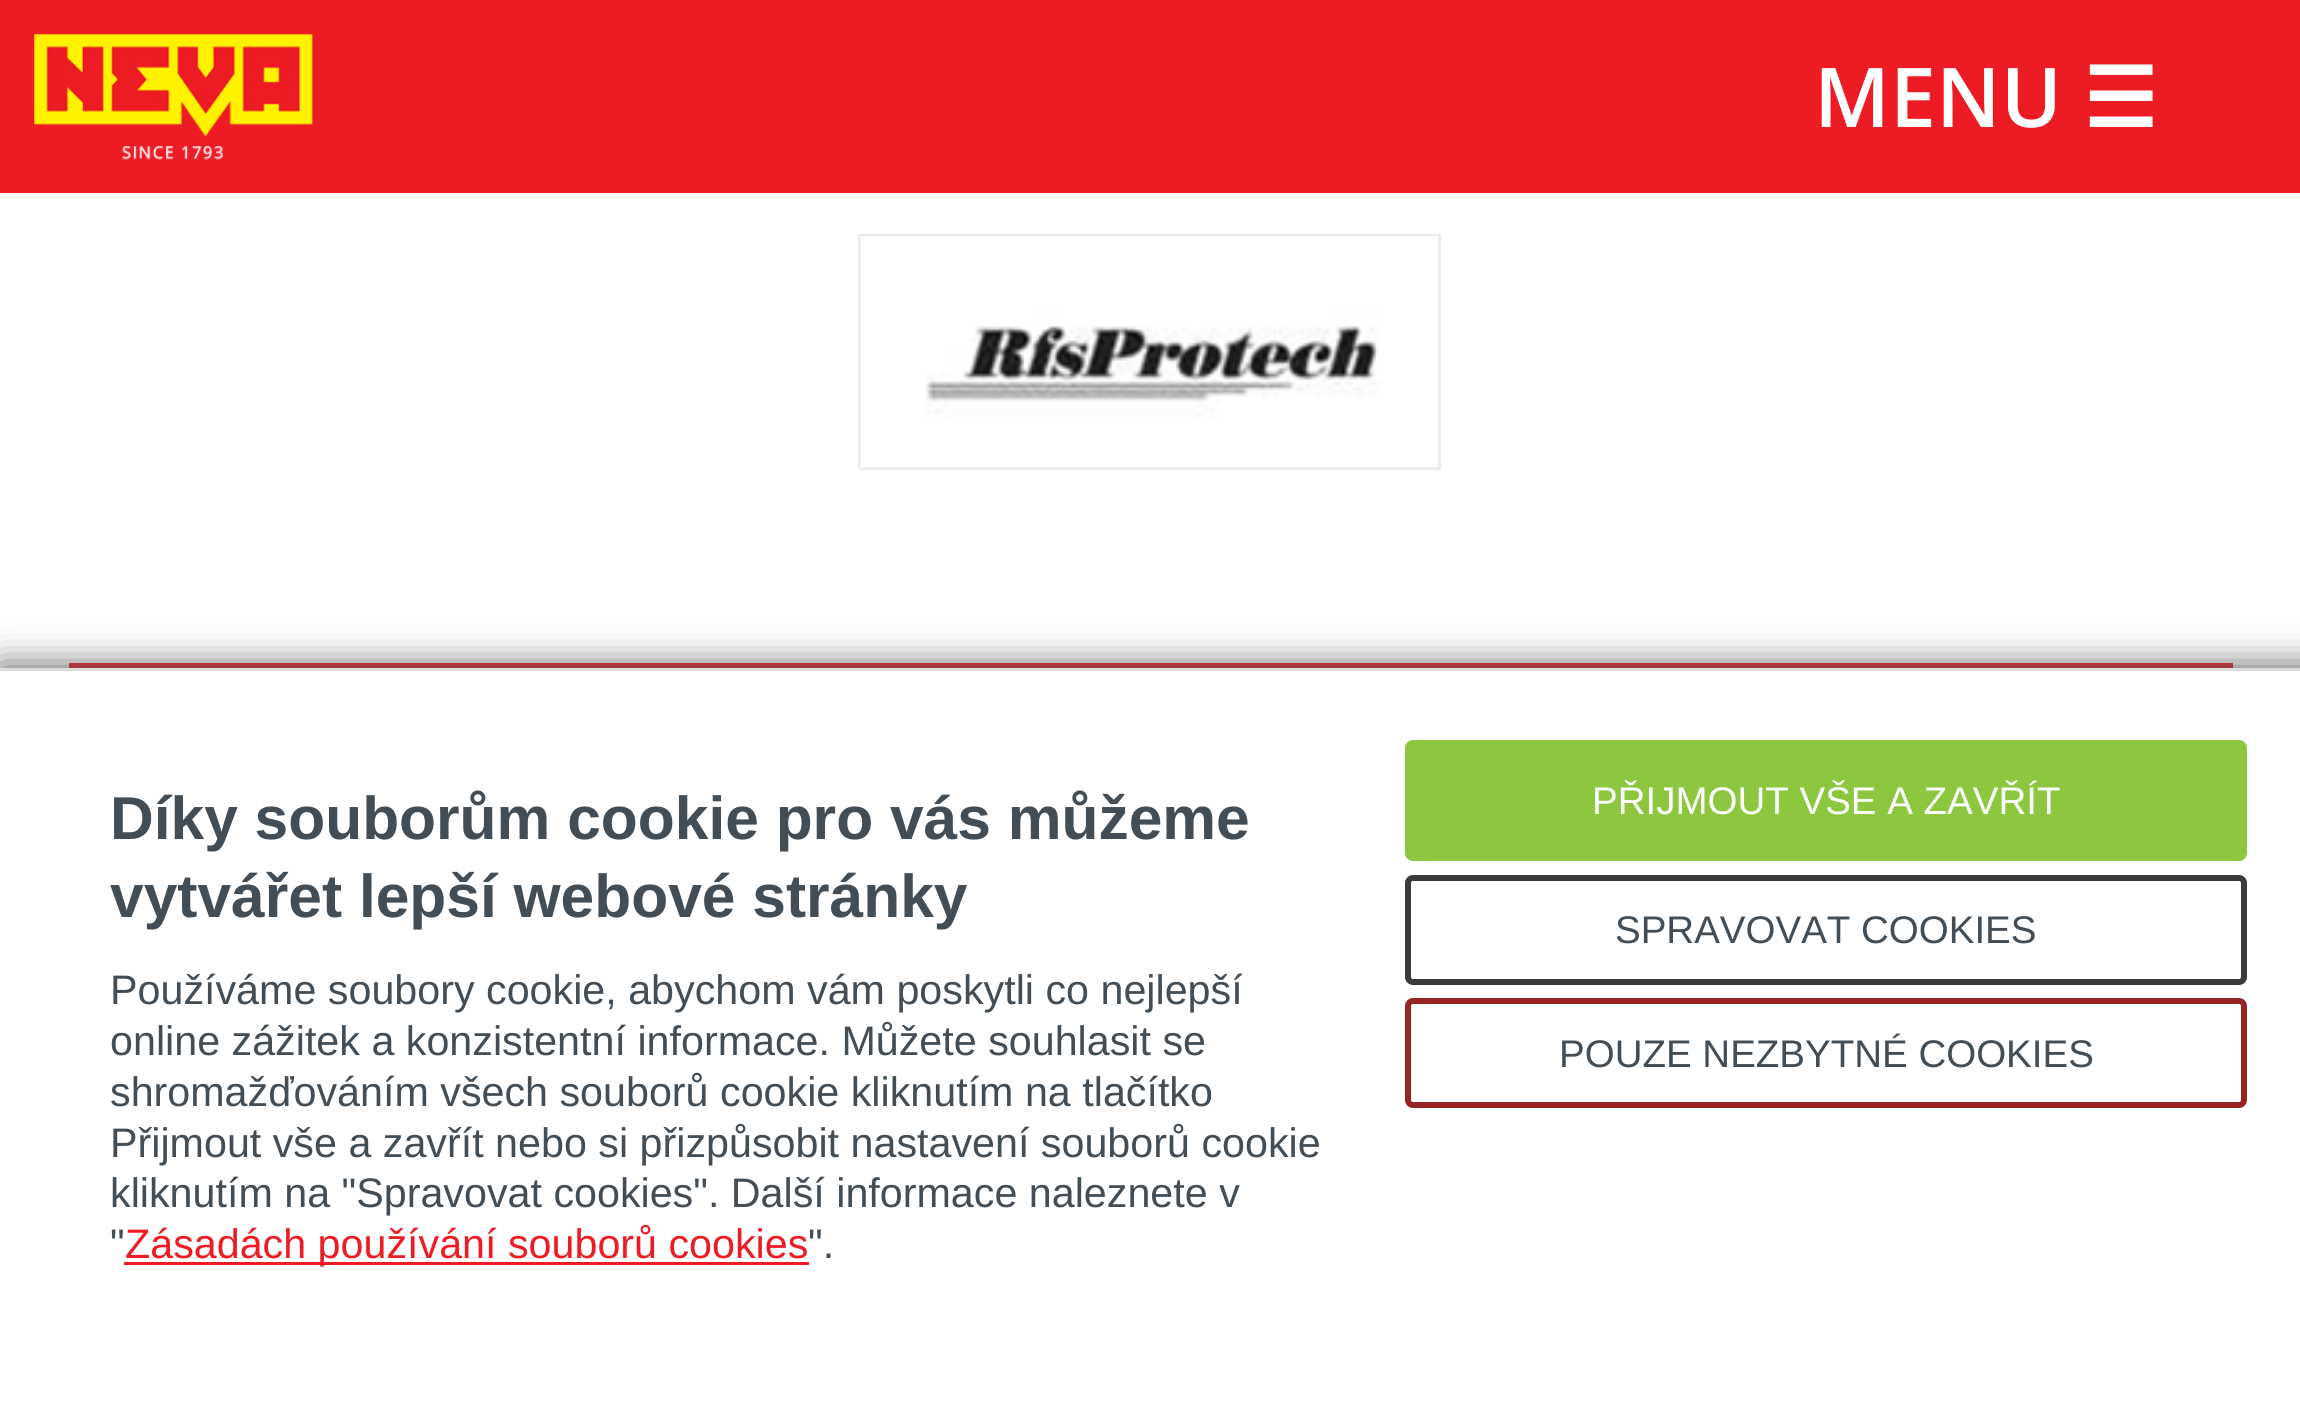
import math
import cairo

surface = cairo.ImageSurface(cairo.FORMAT_RGB24, 2300, 1407)
ctx = cairo.Context(surface)
options = cairo.FontOptions()
options.set_hint_metrics(cairo.HINT_METRICS_OFF)
options.set_hint_style(cairo.HINT_STYLE_NONE)
ctx.set_font_options(options)
ctx.set_miter_limit(4)


def round_rect(x, y, w, h, r):
    ctx.new_sub_path()
    for i, (u, v) in enumerate([(x + w - r, y + h - r), (x + r, y + h - r), (x + r, y + r), (x + w - r, y + r)]):
        ctx.arc(u, v, r, i * math.pi / 2, (i + 1) * math.pi / 2)
    ctx.close_path()


def shadow(x, y, w, h, r, blur, alpha):
    ctx.push_group_with_content(cairo.CONTENT_ALPHA)
    ctx.set_operator(cairo.OPERATOR_SOURCE)
    for i in range(15, -16, -2):
        e = blur * i / 6
        if min(w, h) + 2 * e > 0:
            ctx.set_source_rgba(0, 0, 0, alpha * math.erfc((i - 1) / 8.5) / 2)
            round_rect(x - e, y - e, w + 2 * e, h + 2 * e, max(0, min(r + e + blur * .6, min(w, h) / 2 + e)))
            ctx.fill()
    ctx.mask(ctx.pop_group())


def picture(path, x, y, w, h):
    ctx.save()
    ctx.set_source_surface(cairo.ImageSurface.create_from_png(path), x, y)
    ctx.rectangle(x, y, w, h)
    ctx.fill()
    ctx.restore()


ctx.set_source_rgb(1, 1, 1)
ctx.paint()
ctx.set_source_rgb(0.929, 0.11, 0.141)
ctx.rectangle(0, 0, 2300, 193)
ctx.fill()
picture("img1.png", 34, 34, 279, 126)
ctx.select_font_face("Open Sans SemiBold")
ctx.set_font_size(82.5)
ctx.set_source_rgb(1, 1, 1)
ctx.move_to(1814, 127)
ctx.show_text("MENU")
ctx.select_font_face("DejaVu Sans", cairo.FONT_SLANT_NORMAL, cairo.FONT_WEIGHT_BOLD)
ctx.move_to(2083, 127)
ctx.show_text("☰")
ctx.rectangle(859.5, 235.5, 580, 233)
ctx.set_source_rgb(0.925, 0.925, 0.925)
ctx.set_line_width(3)
ctx.stroke()
picture("img2.png", 860, 236, 579, 232)
ctx.set_source_rgb(0.929, 0.11, 0.141)
ctx.rectangle(69, 663, 2164, 5)
ctx.fill()
ctx.set_source_rgb(0.333, 0.333, 0.333)
shadow(0, 668, 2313, 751, 0, 19, 1)
ctx.set_source_rgb(1, 1, 1)
ctx.rectangle(0, 671, 2300, 736)
ctx.fill()
ctx.set_source_rgb(0.867, 0.867, 0.867)
ctx.rectangle(0, 668, 2300, 3)
ctx.fill()
ctx.select_font_face("Liberation Sans", cairo.FONT_SLANT_NORMAL, cairo.FONT_WEIGHT_BOLD)
ctx.set_font_size(60.5)
ctx.set_source_rgb(0.259, 0.302, 0.337)
ctx.move_to(110, 839)
ctx.show_text("Díky souborům cookie pro vás můžeme")
ctx.move_to(110, 917)
ctx.show_text("vytvářet lepší webové stránky")
ctx.select_font_face("Liberation Sans")
ctx.set_font_size(41.25)
ctx.move_to(110, 1004)
ctx.show_text("Používáme soubory cookie, abychom vám poskytli co nejlepší")
ctx.move_to(110, 1055)
ctx.show_text("online zážitek a konzistentní informace. Můžete souhlasit se")
ctx.move_to(110, 1106)
ctx.show_text("shromažďováním všech souborů cookie kliknutím na tlačítko")
ctx.move_to(110, 1157)
ctx.show_text("Přijmout vše a zavřít nebo si přizpůsobit nastavení souborů cookie")
ctx.move_to(110, 1207)
ctx.show_text("kliknutím na \"Spravovat cookies\". Další informace naleznete v")
ctx.move_to(110, 1258)
ctx.show_text("\"")
ctx.set_source_rgb(0.929, 0.11, 0.141)
ctx.rectangle(124, 1262, 685, 3)
ctx.fill()
ctx.move_to(125, 1258)
ctx.show_text("Zásadách používání souborů cookies")
ctx.set_source_rgb(0.259, 0.302, 0.337)
ctx.move_to(808, 1258)
ctx.show_text("\".")
ctx.set_source_rgb(0.553, 0.776, 0.247)
round_rect(1408, 743, 836, 115, 5)
ctx.fill_preserve()
ctx.set_line_width(6)
ctx.stroke()
ctx.set_font_size(38.5)
ctx.set_source_rgb(1, 1, 1)
ctx.move_to(1592, 814)
ctx.show_text("PŘIJMOUT VŠE A ZAVŘÍT")
round_rect(1408, 878, 836, 104, 5)
ctx.set_source_rgb(0.231, 0.231, 0.231)
ctx.stroke()
ctx.set_source_rgb(0.259, 0.302, 0.337)
ctx.move_to(1615, 943)
ctx.show_text("SPRAVOVAT COOKIES")
round_rect(1408, 1001, 836, 104, 5)
ctx.set_source_rgb(0.596, 0.137, 0.137)
ctx.stroke()
ctx.set_source_rgb(0.259, 0.302, 0.337)
ctx.move_to(1559, 1067)
ctx.show_text("POUZE NEZBYTNÉ COOKIES")
surface.write_to_png("page.png")
